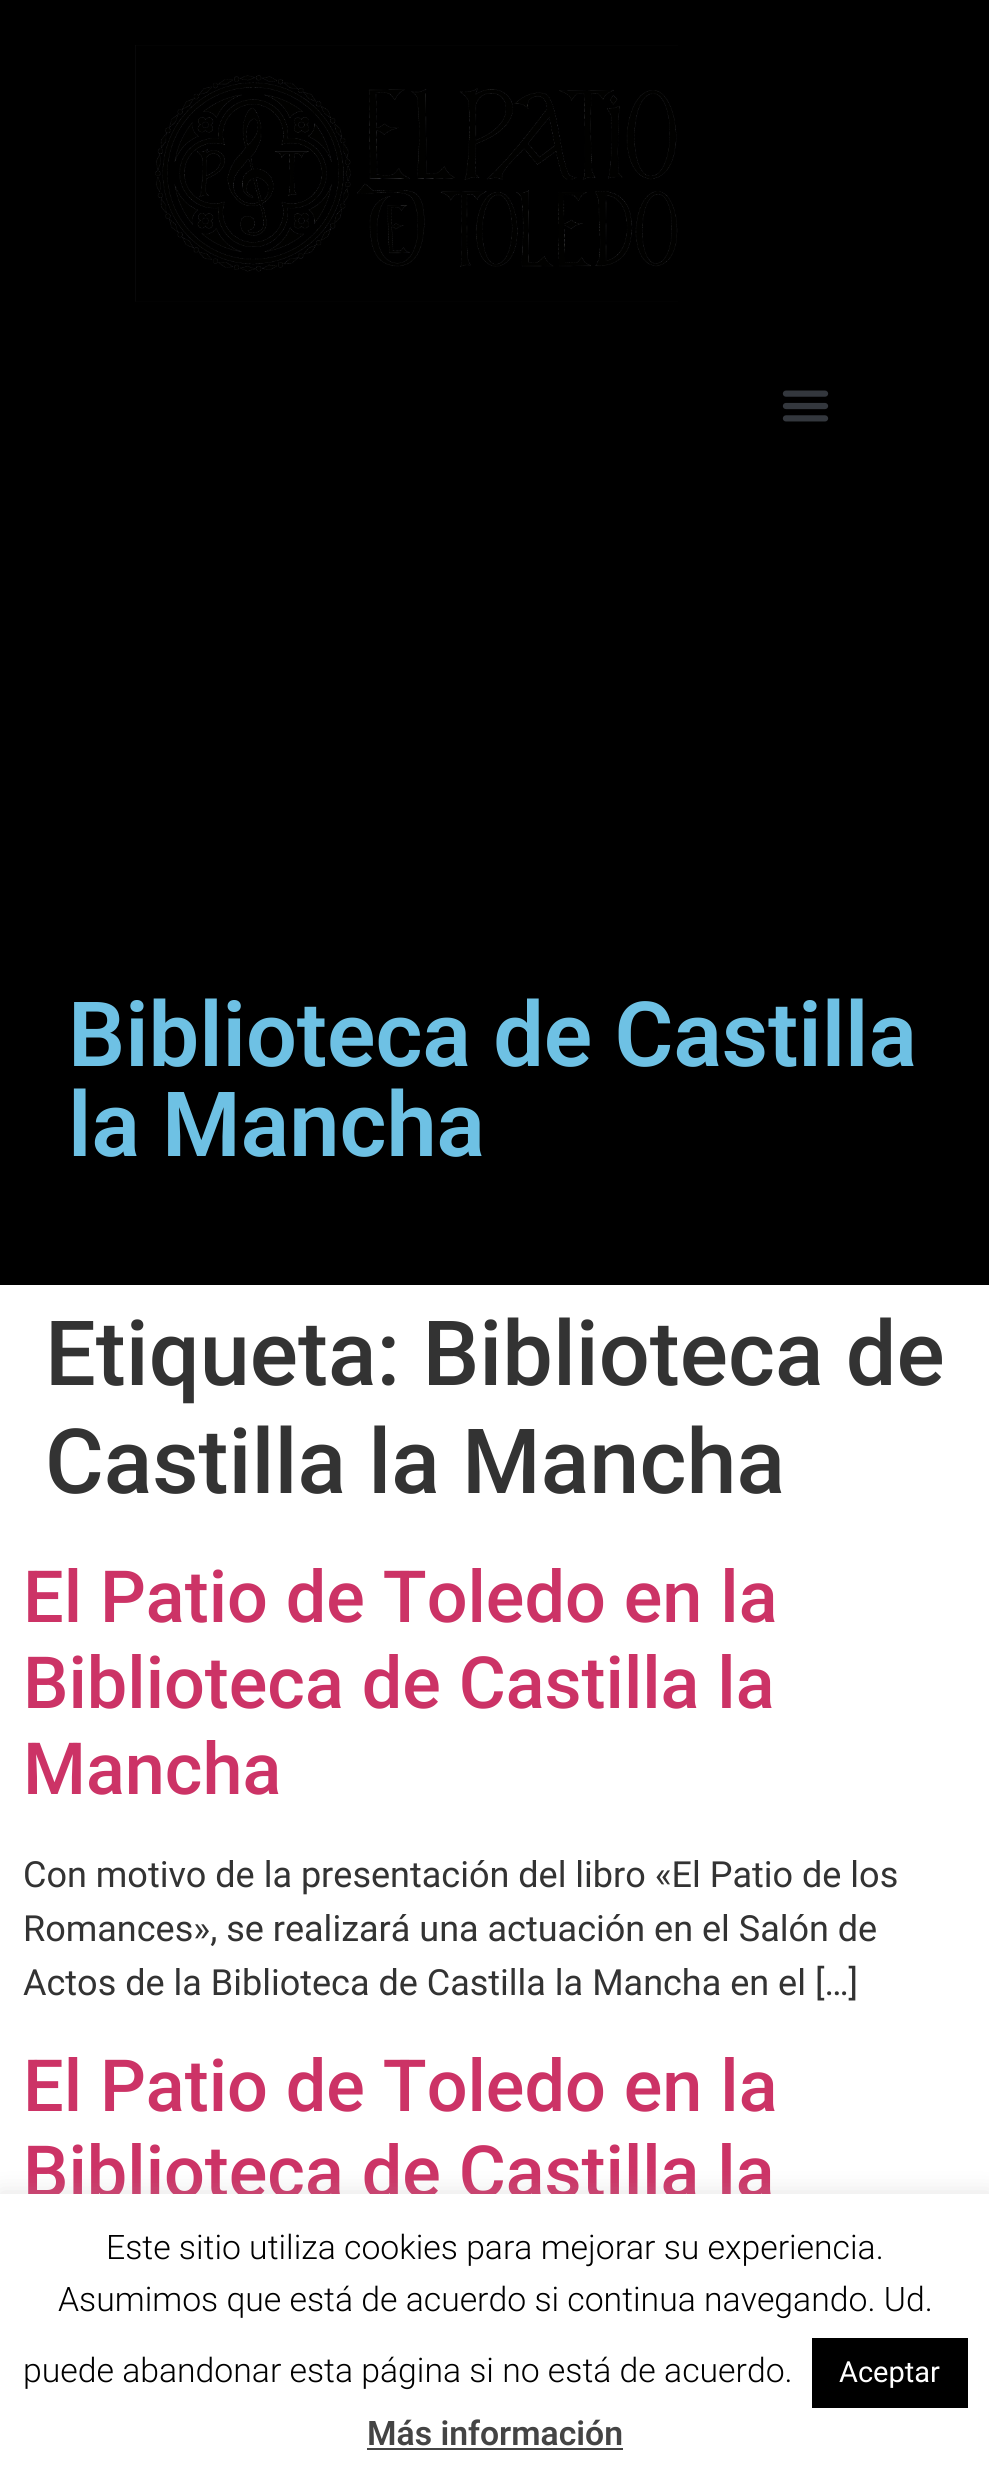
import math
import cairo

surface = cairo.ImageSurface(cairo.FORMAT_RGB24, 989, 2485)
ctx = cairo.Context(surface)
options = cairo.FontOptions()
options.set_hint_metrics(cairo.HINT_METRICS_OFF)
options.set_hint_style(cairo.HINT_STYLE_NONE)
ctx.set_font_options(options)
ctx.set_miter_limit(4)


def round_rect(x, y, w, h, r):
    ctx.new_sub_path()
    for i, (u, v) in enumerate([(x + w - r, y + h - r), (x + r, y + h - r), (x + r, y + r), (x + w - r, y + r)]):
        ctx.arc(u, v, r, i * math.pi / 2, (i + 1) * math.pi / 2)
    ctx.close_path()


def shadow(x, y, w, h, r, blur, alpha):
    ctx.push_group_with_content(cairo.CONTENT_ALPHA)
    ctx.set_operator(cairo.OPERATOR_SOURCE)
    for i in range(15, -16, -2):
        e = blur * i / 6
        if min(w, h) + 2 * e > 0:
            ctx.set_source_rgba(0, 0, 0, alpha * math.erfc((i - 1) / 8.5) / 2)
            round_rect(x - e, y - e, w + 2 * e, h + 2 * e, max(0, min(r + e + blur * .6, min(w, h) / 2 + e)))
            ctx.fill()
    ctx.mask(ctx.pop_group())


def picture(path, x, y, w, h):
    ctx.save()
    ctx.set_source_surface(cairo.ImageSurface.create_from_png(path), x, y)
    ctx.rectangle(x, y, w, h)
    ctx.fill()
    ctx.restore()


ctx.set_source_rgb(1, 1, 1)
ctx.paint()
ctx.set_source_rgb(0, 0, 0)
ctx.rectangle(0, 0, 989, 1285)
ctx.fill()
picture("img1.png", 135, 45, 543, 257)
picture("img2.png", 782, 390, 47, 32)
ctx.select_font_face("Roboto SemiBold")
ctx.set_font_size(90)
ctx.set_source_rgb(0.431, 0.757, 0.894)
ctx.move_to(68, 1066)
ctx.show_text("Biblioteca de Castilla")
ctx.move_to(68, 1156)
ctx.show_text("la Mancha")
ctx.select_font_face("Roboto Medium")
ctx.set_source_rgb(0.2, 0.2, 0.2)
ctx.move_to(45, 1385)
ctx.show_text("Etiqueta: Biblioteca de")
ctx.move_to(45, 1493)
ctx.show_text("Castilla la Mancha")
ctx.set_font_size(72)
ctx.set_source_rgb(0.8, 0.2, 0.4)
ctx.move_to(23, 1622)
ctx.show_text("El Patio de Toledo en la")
ctx.move_to(23, 1708)
ctx.show_text("Biblioteca de Castilla la")
ctx.move_to(23, 1794)
ctx.show_text("Mancha")
ctx.select_font_face("Roboto")
ctx.set_font_size(36)
ctx.set_source_rgb(0.2, 0.2, 0.2)
ctx.move_to(23, 1887)
ctx.show_text("Con motivo de la presentación del libro «El Patio de los")
ctx.move_to(23, 1941)
ctx.show_text("Romances», se realizará una actuación en el Salón de")
ctx.move_to(23, 1995)
ctx.show_text("Actos de la Biblioteca de Castilla la Mancha en el […]")
ctx.select_font_face("Roboto Medium")
ctx.set_font_size(72)
ctx.set_source_rgb(0.8, 0.2, 0.4)
ctx.move_to(23, 2111)
ctx.show_text("El Patio de Toledo en la")
ctx.move_to(23, 2197)
ctx.show_text("Biblioteca de Castilla la")
ctx.set_source_rgb(0.675, 0.671, 0.671)
shadow(0, 2192, 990, 292, 0, 11, 0.3)
ctx.set_source_rgb(1, 1, 1)
ctx.rectangle(0, 2194, 989, 291)
ctx.fill()
ctx.select_font_face("Roboto Light")
ctx.set_font_size(33.75)
ctx.set_source_rgb(0, 0, 0)
ctx.move_to(106, 2259)
ctx.show_text("Este sitio utiliza cookies para mejorar su experiencia.")
ctx.move_to(58, 2311)
ctx.show_text("Asumimos que está de acuerdo si continua navegando. Ud.")
ctx.move_to(23, 2382)
ctx.show_text("puede abandonar esta página si no está de acuerdo.")
ctx.rectangle(812, 2338, 156, 70)
ctx.fill()
ctx.select_font_face("Roboto")
ctx.set_font_size(29)
ctx.set_source_rgb(1, 1, 1)
ctx.move_to(839, 2382)
ctx.show_text("Aceptar")
ctx.select_font_face("Roboto SemiBold")
ctx.set_font_size(33.75)
ctx.set_source_rgb(0.267, 0.267, 0.267)
ctx.move_to(367, 2445)
ctx.show_text("Más información")
ctx.rectangle(367, 2448, 256, 2)
ctx.fill()
surface.write_to_png("page.png")
